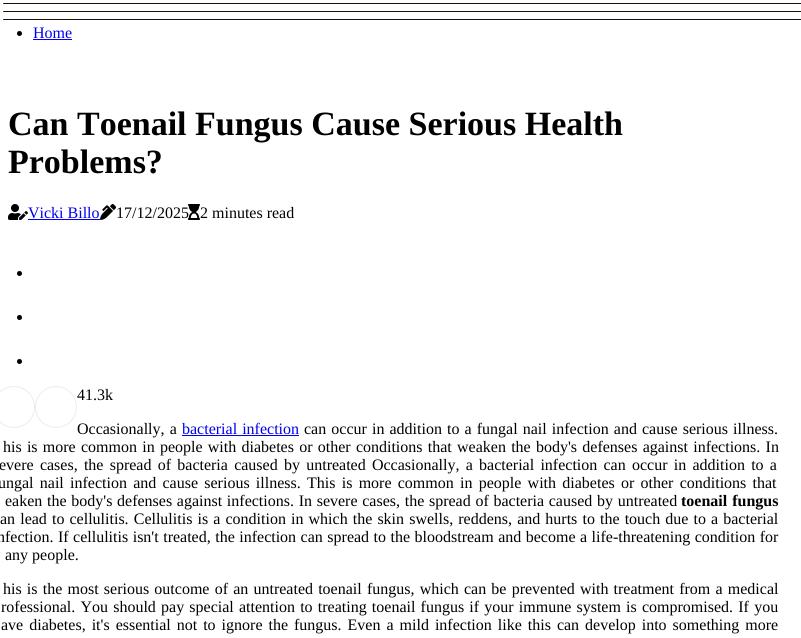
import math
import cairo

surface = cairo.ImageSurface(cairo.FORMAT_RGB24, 801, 638)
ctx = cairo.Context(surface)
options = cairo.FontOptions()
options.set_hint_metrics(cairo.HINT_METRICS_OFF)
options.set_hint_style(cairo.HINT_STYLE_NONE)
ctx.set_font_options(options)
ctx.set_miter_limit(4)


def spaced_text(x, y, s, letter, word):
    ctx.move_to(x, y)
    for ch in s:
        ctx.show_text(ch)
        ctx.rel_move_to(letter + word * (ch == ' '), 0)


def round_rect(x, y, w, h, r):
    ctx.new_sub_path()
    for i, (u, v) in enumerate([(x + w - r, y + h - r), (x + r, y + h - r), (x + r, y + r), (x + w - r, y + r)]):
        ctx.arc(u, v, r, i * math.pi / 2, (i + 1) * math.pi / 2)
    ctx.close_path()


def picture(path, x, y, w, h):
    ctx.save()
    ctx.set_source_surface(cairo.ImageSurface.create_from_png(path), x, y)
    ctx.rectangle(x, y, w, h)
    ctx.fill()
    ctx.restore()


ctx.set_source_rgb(1, 1, 1)
ctx.paint()
ctx.set_source_rgb(0.11, 0.059, 0.027)
round_rect(3, 3, 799, 1, 0.5)
ctx.fill()
round_rect(3, 11, 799, 1, 0.5)
ctx.fill()
round_rect(3, 19, 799, 1, 0.5)
ctx.fill()
ctx.set_source_rgb(0, 0, 0)
ctx.arc(19.5, 33.5, 2.5, 0, 2 * math.pi)
ctx.fill()
ctx.select_font_face("Liberation Serif")
ctx.set_font_size(16)
ctx.set_source_rgb(0, 0, 0.933)
ctx.move_to(33, 38)
ctx.show_text("Home")
ctx.rectangle(33, 39, 39, 1)
ctx.fill()
ctx.select_font_face("Liberation Serif", cairo.FONT_SLANT_NORMAL, cairo.FONT_WEIGHT_BOLD)
ctx.set_font_size(34)
ctx.set_source_rgb(0, 0, 0)
ctx.move_to(8, 135)
ctx.show_text("Can Toenail Fungus Cause Serious Health")
ctx.move_to(8, 173)
ctx.show_text("Problems?")
picture("img1.png", 8, 204, 20, 16)
ctx.select_font_face("Liberation Serif")
ctx.set_font_size(16)
ctx.set_source_rgb(0, 0, 0.933)
ctx.move_to(28, 218)
ctx.show_text("Vicki Billo")
ctx.rectangle(28, 219, 72, 1)
ctx.fill()
picture("img2.png", 100, 204, 16, 16)
ctx.set_source_rgb(0, 0, 0)
ctx.move_to(116, 218)
ctx.show_text("17/12/2025")
picture("img3.png", 188, 204, 12, 16)
ctx.move_to(200, 218)
ctx.show_text("2 minutes read")
ctx.new_path()
ctx.arc(19.5, 273.5, 2.5, 0, 2 * math.pi)
ctx.fill()
ctx.arc(19.5, 317.5, 2.5, 0, 2 * math.pi)
ctx.fill()
ctx.arc(19.5, 361.5, 2.5, 0, 2 * math.pi)
ctx.fill()
ctx.arc(56, 407, 20.5, 0, 2 * math.pi)
ctx.set_source_rgb(0.922, 0.922, 0.922)
ctx.set_line_width(1)
ctx.stroke()
ctx.arc(14, 407, 20.5, 0, 2 * math.pi)
ctx.stroke()
ctx.set_source_rgb(0, 0, 0)
ctx.move_to(77, 400)
ctx.show_text("41.3k")
spaced_text(77, 434, "Occasionally, a", 0, 1.1)
ctx.set_source_rgb(0, 0, 0.933)
spaced_text(182, 434, "bacterial infection", 0, 1.1)
ctx.rectangle(182, 435, 117, 1)
ctx.fill()
ctx.set_source_rgb(0, 0, 0)
spaced_text(304, 434, "can occur in addition to a fungal nail infection and cause serious illness.", 0, 1.1)
spaced_text(3, 452, "his is more common in people with diabetes or other conditions that weaken the body's defenses against infections. In", 0, 1.25)
spaced_text(-1, 470, "evere cases, the spread of bacteria caused by untreated Occasionally, a bacterial infection can occur in addition to a", 0, 2.25)
spaced_text(-2, 488, "ungal nail infection and cause serious illness. This is more common in people with diabetes or other conditions that", 0, 2.25)
spaced_text(5, 506, "eaken the body's defenses against infections. In severe cases, the spread of bacteria caused by untreated", 0, 0.7)
ctx.select_font_face("Liberation Serif", cairo.FONT_SLANT_NORMAL, cairo.FONT_WEIGHT_BOLD)
spaced_text(681, 506, "toenail fungus", 0, 1)
ctx.select_font_face("Liberation Serif")
spaced_text(0, 524, "an lead to cellulitis. Cellulitis is a condition in which the skin swells, reddens, and hurts to the touch due to a bacterial", 0, 1.1)
spaced_text(-3, 542, "nfection. If cellulitis isn't treated, the infection can spread to the bloodstream and become a life-threatening condition for", 0, 0.5)
ctx.move_to(5, 560)
ctx.show_text("any people.")
spaced_text(3, 594, "his is the most serious outcome of an untreated toenail fungus, which can be prevented with treatment from a medical", 0, 1.2)
spaced_text(1, 612, "rofessional. You should pay special attention to treating toenail fungus if your immune system is compromised. If you", 0, 1.2)
spaced_text(1, 630, "ave diabetes, it's essential not to ignore the fungus. Even a mild infection like this can develop into something more", 0, 2)
surface.write_to_png("page.png")
